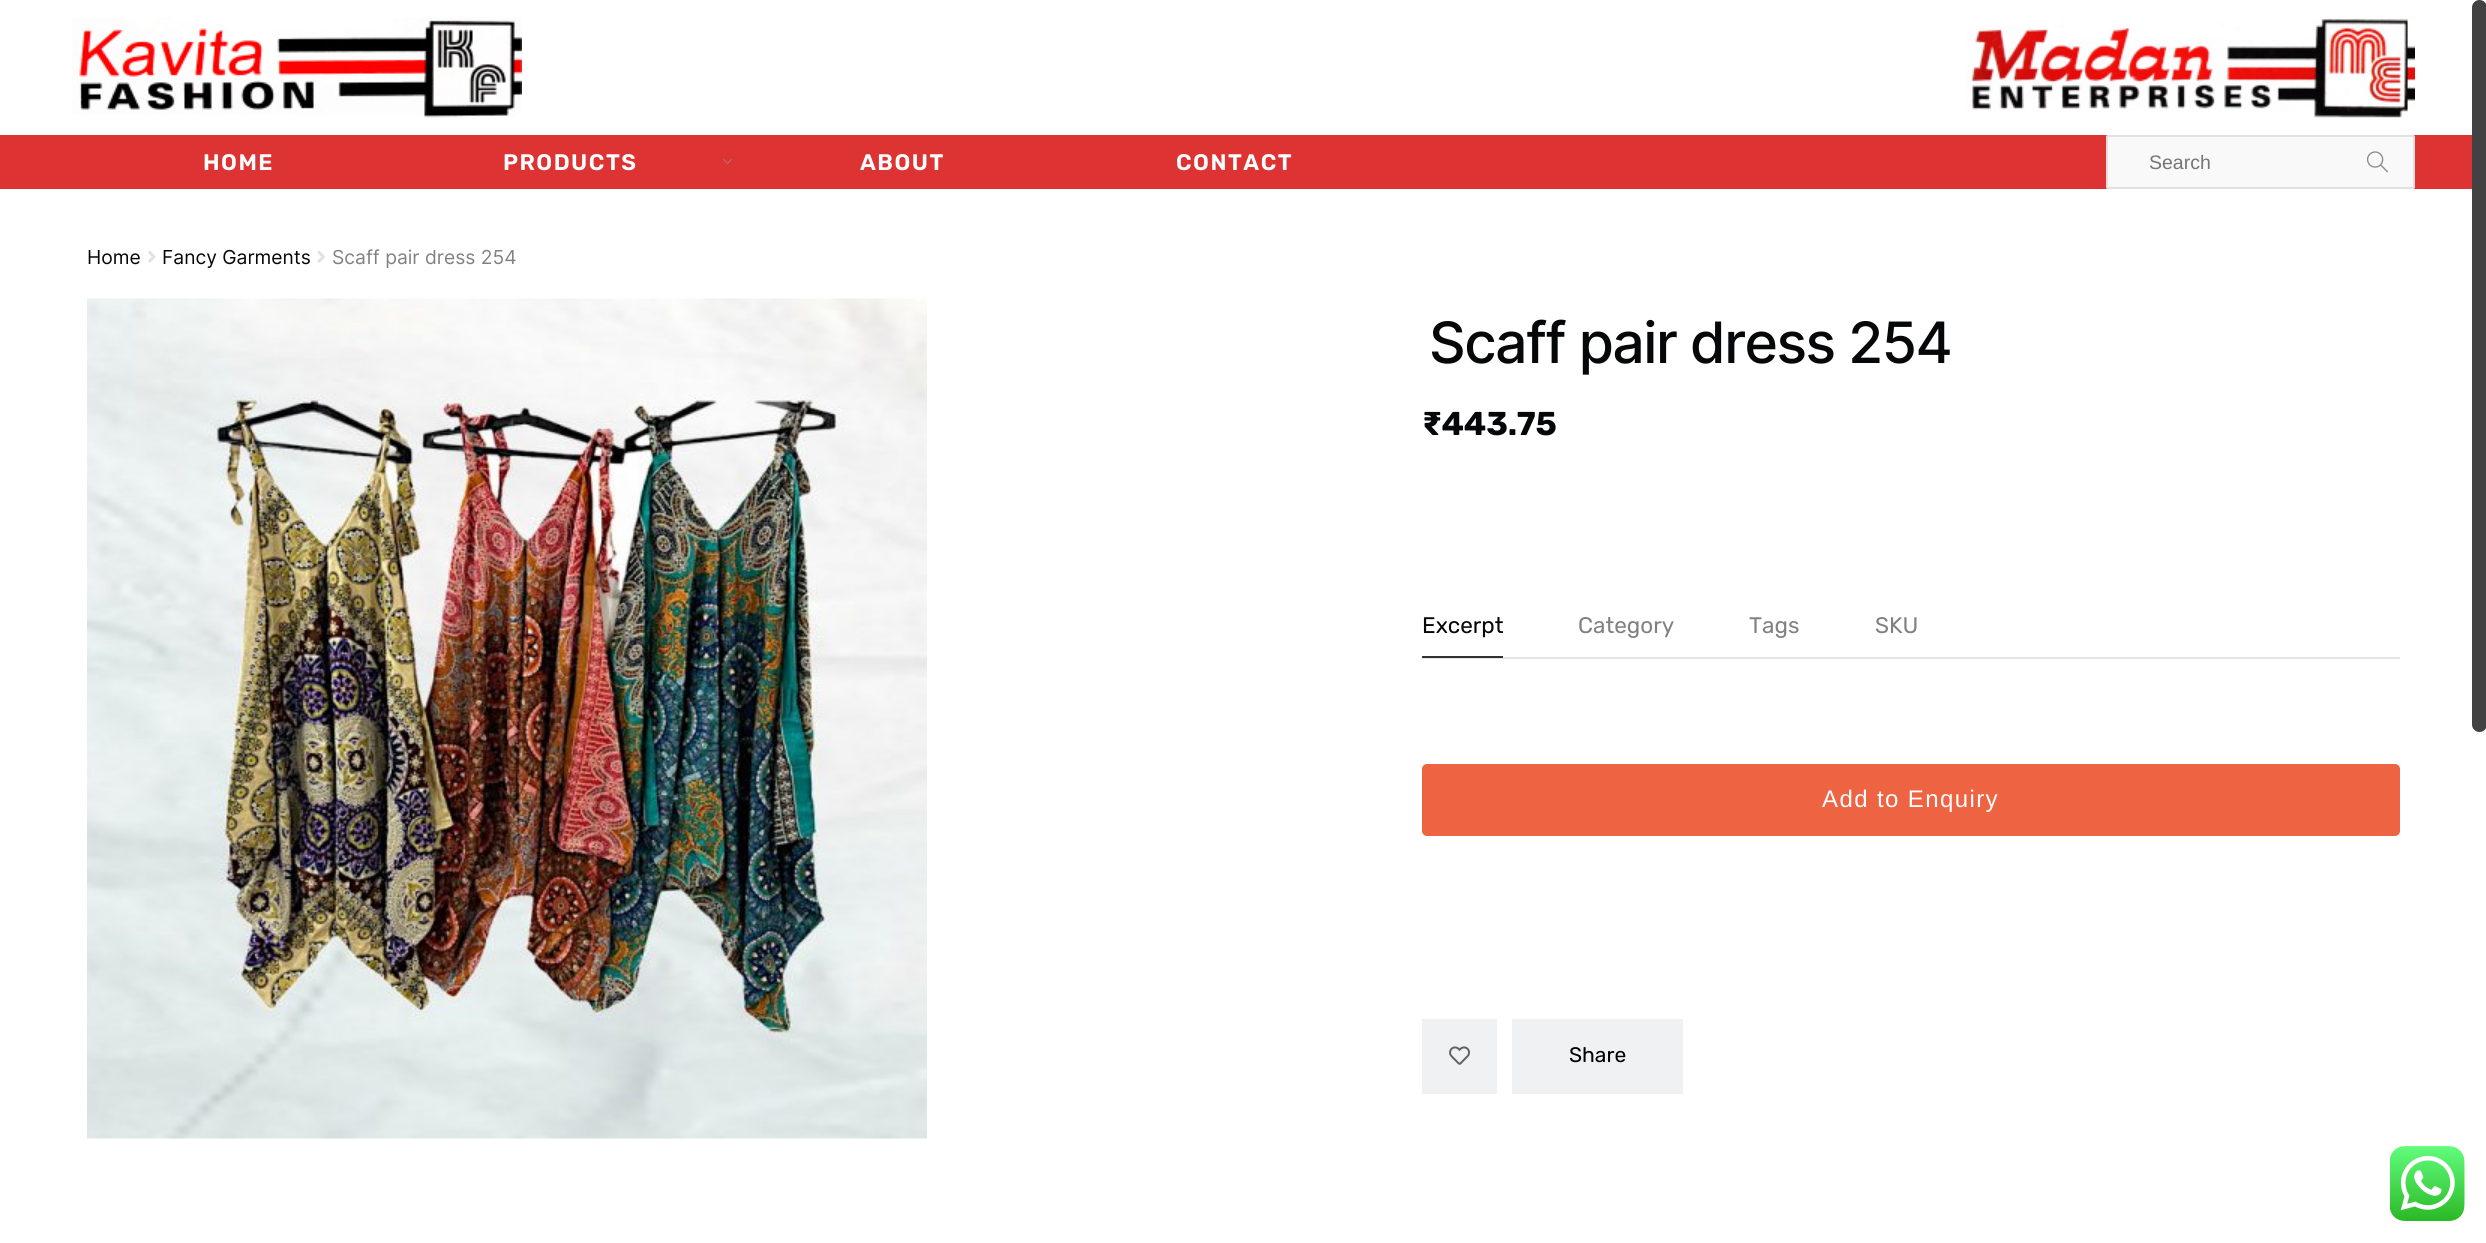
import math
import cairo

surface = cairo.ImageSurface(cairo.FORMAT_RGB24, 2486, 1243)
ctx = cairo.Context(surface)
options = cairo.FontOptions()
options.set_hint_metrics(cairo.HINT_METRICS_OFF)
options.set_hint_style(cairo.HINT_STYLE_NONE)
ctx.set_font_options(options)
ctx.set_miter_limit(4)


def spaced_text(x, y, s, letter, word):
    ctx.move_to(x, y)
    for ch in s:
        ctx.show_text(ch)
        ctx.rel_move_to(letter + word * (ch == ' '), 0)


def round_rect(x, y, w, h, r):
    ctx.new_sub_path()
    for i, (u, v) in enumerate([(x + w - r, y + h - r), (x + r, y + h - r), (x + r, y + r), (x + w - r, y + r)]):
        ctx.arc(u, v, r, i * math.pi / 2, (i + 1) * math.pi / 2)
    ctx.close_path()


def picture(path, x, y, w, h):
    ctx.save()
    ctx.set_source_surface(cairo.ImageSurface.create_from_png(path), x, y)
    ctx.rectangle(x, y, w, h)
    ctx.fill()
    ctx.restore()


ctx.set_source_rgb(1, 1, 1)
ctx.paint()
picture("img1.png", 72, 17, 450, 101)
picture("img2.png", 1965, 18, 450, 100)
ctx.set_source_rgb(0.867, 0.2, 0.2)
ctx.rectangle(0, 135, 2472, 54)
ctx.fill()
ctx.select_font_face("Rubik SemiBold")
ctx.set_font_size(22.5)
ctx.set_source_rgb(1, 1, 1)
spaced_text(203, 170, "HOME", 1.5, 0)
spaced_text(503, 170, "PRODUCTS", 1.5, 0)
picture("img3.png", 723, 159, 9, 5)
spaced_text(860, 170, "ABOUT", 1.5, 0)
spaced_text(1176, 170, "CONTACT", 1.5, 0)
ctx.set_source_rgb(0.976, 0.976, 0.976)
round_rect(2107, 136, 307, 52, 0.5)
ctx.fill_preserve()
ctx.set_source_rgb(0.882, 0.882, 0.882)
ctx.stroke()
ctx.select_font_face("Liberation Sans")
ctx.set_font_size(19.5)
ctx.set_source_rgb(0.459, 0.459, 0.459)
ctx.move_to(2149, 169)
ctx.show_text("Search")
picture("img4.png", 2367, 151, 21, 22)
ctx.select_font_face("Inter")
ctx.set_font_size(19.25)
ctx.set_source_rgb(0.027, 0.031, 0.035)
ctx.move_to(87, 264)
ctx.show_text("Home")
picture("img5.png", 148, 250, 8, 13)
ctx.move_to(162, 264)
ctx.show_text("Fancy Garments")
picture("img6.png", 317, 250, 8, 13)
ctx.set_source_rgb(0.502, 0.506, 0.51)
ctx.move_to(332, 264)
ctx.show_text("Scaff pair dress 254")
picture("img7.png", 87, 298, 840, 841)
ctx.select_font_face("Inter Medium")
ctx.set_font_size(57)
ctx.set_source_rgb(0.027, 0.031, 0.035)
spaced_text(1429, 363, "Scaff pair dress 254", -1.5, 0)
ctx.select_font_face("Rubik", cairo.FONT_SLANT_NORMAL, cairo.FONT_WEIGHT_BOLD)
ctx.set_font_size(33)
spaced_text(1422, 435, "₹443.75", -0.25, 0)
ctx.set_source_rgb(0.886, 0.89, 0.894)
ctx.rectangle(1422, 657, 978, 2)
ctx.fill()
ctx.set_source_rgb(0.192, 0.196, 0.2)
ctx.rectangle(1422, 656, 81, 2)
ctx.fill()
ctx.select_font_face("Rubik")
ctx.set_font_size(22.5)
ctx.set_source_rgb(0.027, 0.031, 0.035)
ctx.move_to(1422, 633)
ctx.show_text("Excerpt")
ctx.set_source_rgb(0.502, 0.506, 0.51)
ctx.move_to(1578, 633)
ctx.show_text("Category")
ctx.move_to(1749, 633)
ctx.show_text("Tags")
ctx.move_to(1875, 633)
ctx.show_text("SKU")
ctx.set_source_rgb(0.933, 0.392, 0.263)
round_rect(1422, 764, 978, 72, 5)
ctx.fill()
ctx.select_font_face("Liberation Sans")
ctx.set_font_size(24)
ctx.set_source_rgb(1, 1, 1)
spaced_text(1822, 807, "Add to Enquiry", 1.4, 0)
ctx.set_source_rgb(0.941, 0.945, 0.949)
ctx.rectangle(1422, 1019, 75, 75)
ctx.fill()
picture("img8.png", 1449, 1046, 21, 19)
ctx.rectangle(1512, 1019, 171, 75)
ctx.fill()
ctx.select_font_face("Rubik")
ctx.set_font_size(21)
ctx.set_source_rgb(0, 0, 0)
ctx.move_to(1569, 1062)
ctx.show_text("Share")
ctx.set_source_rgb(0.259, 0.259, 0.259)
round_rect(2472, 0, 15, 732, 7.5)
ctx.fill()
picture("img9.png", 2390, 1146, 75, 75)
surface.write_to_png("page.png")
